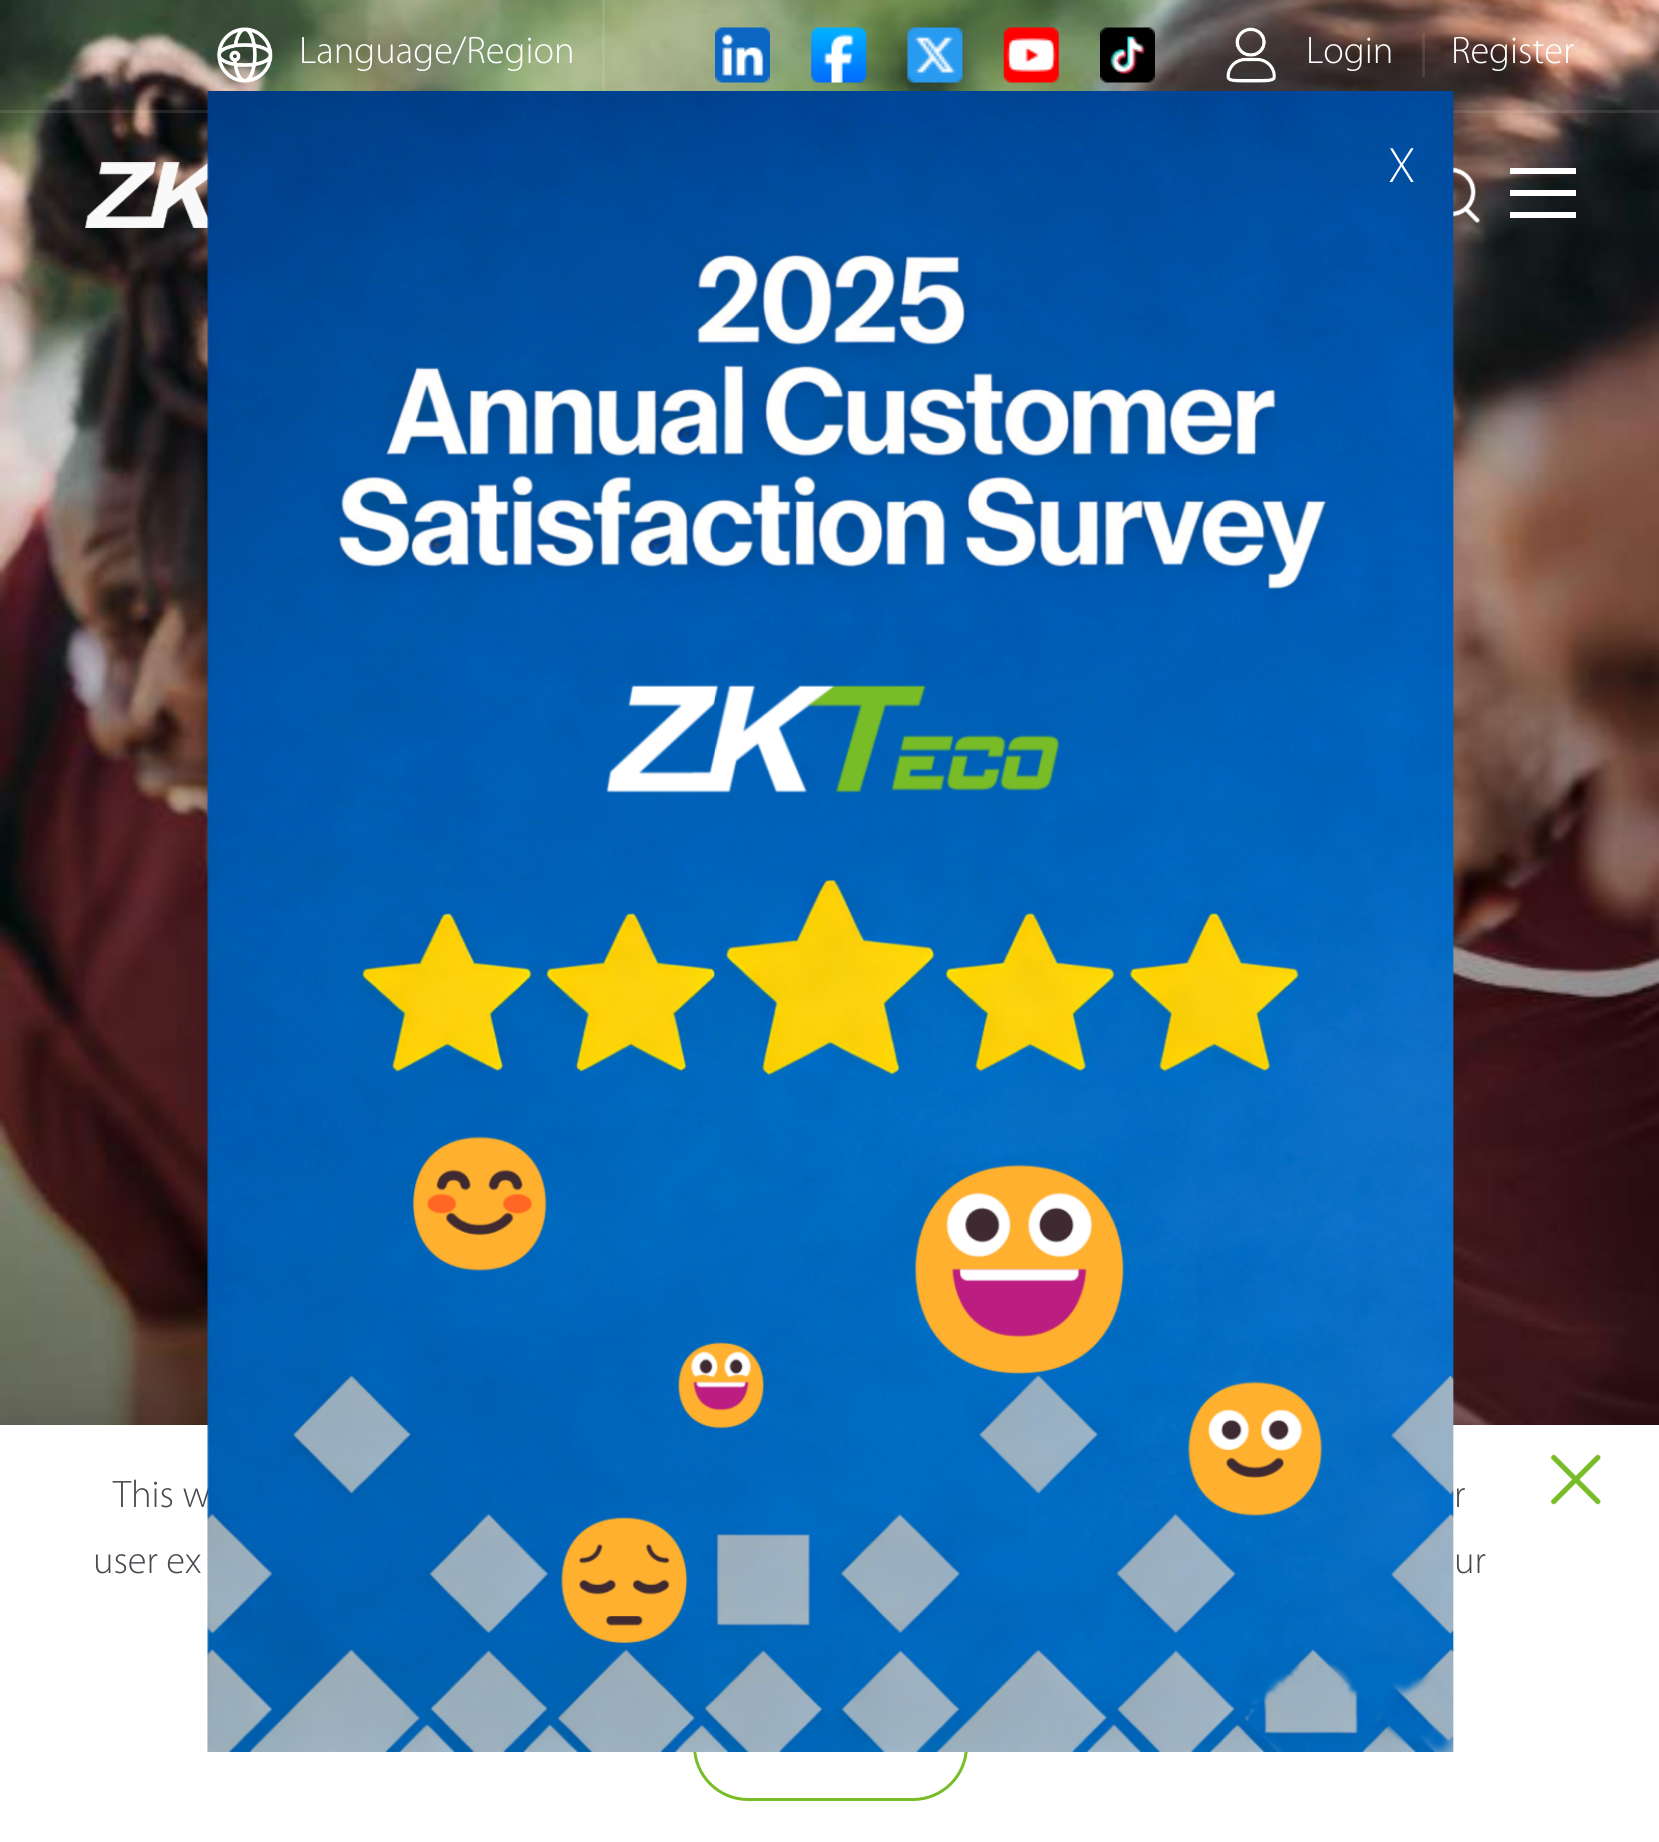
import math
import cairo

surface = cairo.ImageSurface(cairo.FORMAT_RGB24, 1659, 1842)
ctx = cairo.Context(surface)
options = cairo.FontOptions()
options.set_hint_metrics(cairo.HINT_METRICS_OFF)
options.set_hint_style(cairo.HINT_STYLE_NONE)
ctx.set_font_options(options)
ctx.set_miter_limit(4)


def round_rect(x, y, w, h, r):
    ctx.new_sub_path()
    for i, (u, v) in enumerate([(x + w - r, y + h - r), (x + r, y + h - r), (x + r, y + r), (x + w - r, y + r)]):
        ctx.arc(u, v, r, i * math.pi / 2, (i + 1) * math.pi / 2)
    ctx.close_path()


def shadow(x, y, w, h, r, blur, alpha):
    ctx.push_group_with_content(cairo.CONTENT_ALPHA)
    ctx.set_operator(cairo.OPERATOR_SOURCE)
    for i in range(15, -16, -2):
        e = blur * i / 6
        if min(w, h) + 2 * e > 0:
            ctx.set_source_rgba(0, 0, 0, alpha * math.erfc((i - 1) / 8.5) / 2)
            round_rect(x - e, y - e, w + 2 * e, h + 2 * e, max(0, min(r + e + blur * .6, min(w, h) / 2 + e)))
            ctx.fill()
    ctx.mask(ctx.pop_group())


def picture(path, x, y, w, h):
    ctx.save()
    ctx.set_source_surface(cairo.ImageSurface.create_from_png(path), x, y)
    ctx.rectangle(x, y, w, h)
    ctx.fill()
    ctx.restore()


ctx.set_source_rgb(1, 1, 1)
ctx.paint()
picture("img1.png", 0, 0, 1659, 1425)
ctx.set_source_rgba(1, 1, 1, 0.1)
ctx.rectangle(0, 110, 1659, 3)
ctx.fill()
ctx.rectangle(602, 0, 3, 91)
ctx.fill()
picture("img2.png", 217, 27, 56, 56)
ctx.select_font_face("Myriad Light")
ctx.set_font_size(38.5)
ctx.set_source_rgb(1, 1, 1)
ctx.move_to(299, 63)
ctx.show_text("Language/Region")
picture("img3.png", 715, 27, 55, 56)
picture("img4.png", 811, 27, 56, 56)
picture("img5.png", 907, 27, 56, 56)
picture("img6.png", 1003, 27, 56, 56)
picture("img7.png", 1100, 27, 55, 56)
picture("img8.png", 1226, 27, 50, 56)
ctx.set_source_rgba(1, 1, 1, 0.1)
ctx.rectangle(1422, 33, 3, 44)
ctx.fill()
ctx.set_source_rgb(1, 1, 1)
ctx.move_to(1306, 63)
ctx.show_text("Login")
ctx.move_to(1451, 63)
ctx.show_text("Register")
picture("img9.png", 85, 162, 124, 66)
picture("img10.png", 1453, 167, 28, 57)
ctx.rectangle(1510, 168, 66, 6)
ctx.fill()
ctx.rectangle(1510, 190, 66, 6)
ctx.fill()
ctx.rectangle(1510, 212, 66, 6)
ctx.fill()
ctx.set_source_rgb(0, 0, 0)
shadow(0, 1438, 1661, 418, 0, 27.5, 0.2)
ctx.set_source_rgb(1, 1, 1)
ctx.rectangle(0, 1425, 1659, 417)
ctx.fill()
ctx.set_source_rgb(0.278, 0.294, 0.31)
ctx.move_to(113, 1507)
ctx.show_text("This w")
round_rect(694.5, 1692.5, 272, 107, 53.5)
ctx.set_source_rgb(0.471, 0.737, 0.153)
ctx.set_line_width(3)
ctx.stroke()
picture("img11.png", 207, 91, 1248, 1661)
ctx.set_font_size(50)
ctx.set_source_rgb(1, 1, 1)
ctx.move_to(1388, 182)
ctx.show_text("X")
ctx.set_font_size(38.5)
ctx.set_source_rgb(0.278, 0.294, 0.31)
ctx.move_to(1454, 1507)
ctx.show_text("r")
ctx.move_to(93, 1573)
ctx.show_text("user ex")
ctx.move_to(1454, 1573)
ctx.show_text("ur")
picture("img12.png", 1550, 1454, 51, 51)
surface.write_to_png("page.png")
